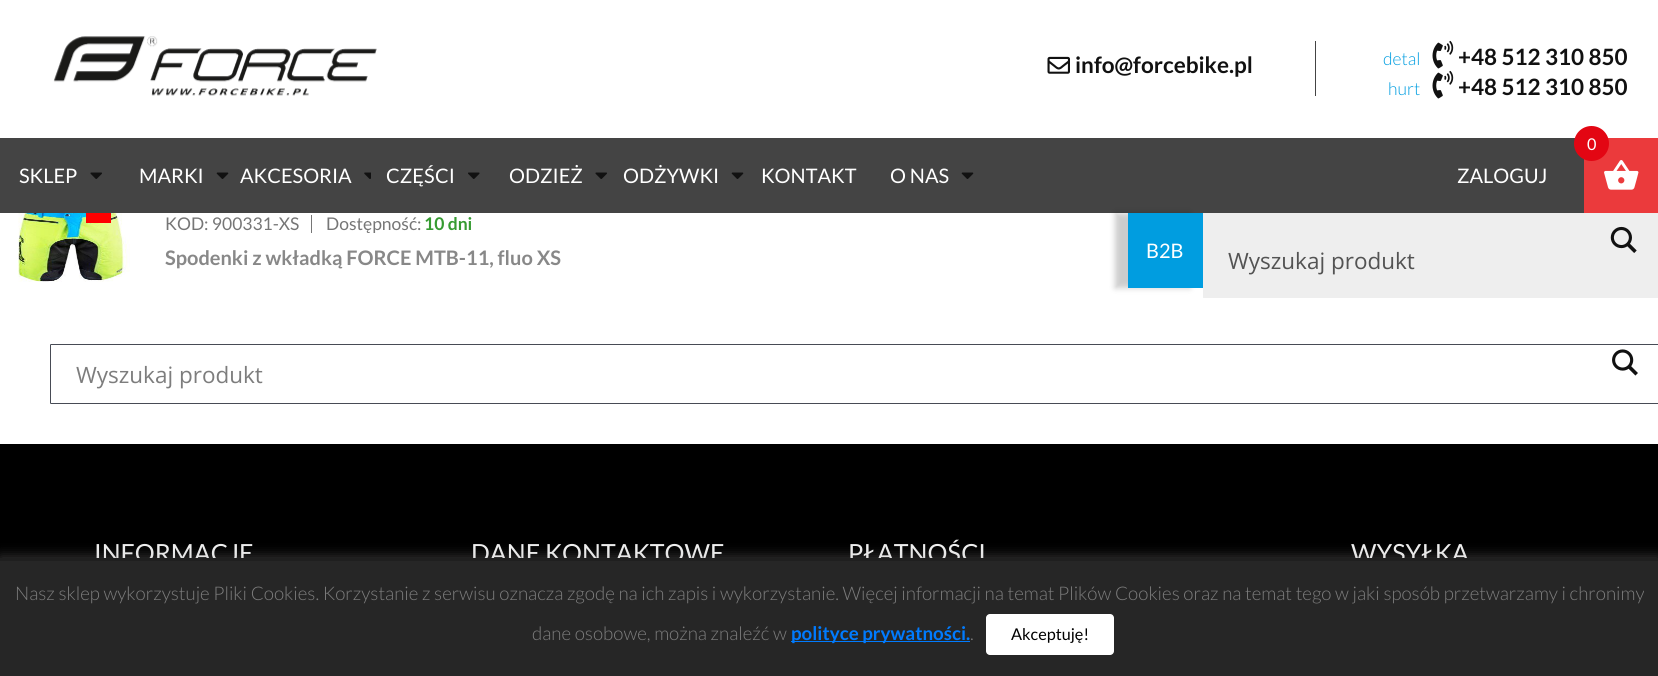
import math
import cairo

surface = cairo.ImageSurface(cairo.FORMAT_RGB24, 1658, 676)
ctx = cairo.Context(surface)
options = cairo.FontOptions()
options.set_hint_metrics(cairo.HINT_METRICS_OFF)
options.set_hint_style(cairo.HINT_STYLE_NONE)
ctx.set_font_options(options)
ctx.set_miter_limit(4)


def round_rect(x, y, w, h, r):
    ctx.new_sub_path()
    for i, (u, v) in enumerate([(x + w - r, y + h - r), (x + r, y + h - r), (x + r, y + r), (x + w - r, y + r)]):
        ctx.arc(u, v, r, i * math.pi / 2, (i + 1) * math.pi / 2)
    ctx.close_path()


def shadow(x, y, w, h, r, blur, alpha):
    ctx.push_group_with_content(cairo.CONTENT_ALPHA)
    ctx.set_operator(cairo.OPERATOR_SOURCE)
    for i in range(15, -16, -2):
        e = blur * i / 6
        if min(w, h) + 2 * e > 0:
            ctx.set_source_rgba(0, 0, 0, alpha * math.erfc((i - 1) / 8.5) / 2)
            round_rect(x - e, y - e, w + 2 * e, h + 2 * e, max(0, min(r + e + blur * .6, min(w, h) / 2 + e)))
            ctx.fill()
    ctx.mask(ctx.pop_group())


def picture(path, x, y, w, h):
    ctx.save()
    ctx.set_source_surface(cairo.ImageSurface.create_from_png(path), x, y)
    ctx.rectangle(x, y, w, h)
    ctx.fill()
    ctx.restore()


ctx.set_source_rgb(1, 1, 1)
ctx.paint()
picture("img1.png", 53, 36, 324, 60)
picture("img2.png", 1047, 56, 23, 18)
ctx.select_font_face("Lato", cairo.FONT_SLANT_NORMAL, cairo.FONT_WEIGHT_BOLD)
ctx.set_font_size(22.5)
ctx.set_source_rgb(0.067, 0.067, 0.067)
ctx.move_to(1075, 73)
ctx.show_text("info@forcebike.pl")
ctx.set_source_rgb(0.267, 0.267, 0.267)
ctx.rectangle(1315, 41, 1, 55)
ctx.fill()
ctx.select_font_face("Lato Light")
ctx.set_font_size(17.5)
ctx.set_source_rgb(0, 0.616, 0.878)
ctx.move_to(1383, 65)
ctx.show_text("detal")
picture("img3.png", 1432, 40, 22, 29)
ctx.select_font_face("Lato", cairo.FONT_SLANT_NORMAL, cairo.FONT_WEIGHT_BOLD)
ctx.set_font_size(22.5)
ctx.set_source_rgb(0.067, 0.067, 0.067)
ctx.move_to(1458, 65)
ctx.show_text("+48 512 310 850")
ctx.select_font_face("Lato Light")
ctx.set_font_size(17.5)
ctx.set_source_rgb(0, 0.616, 0.878)
ctx.move_to(1388, 95)
ctx.show_text("hurt")
picture("img3.png", 1432, 70, 22, 29)
ctx.select_font_face("Lato", cairo.FONT_SLANT_NORMAL, cairo.FONT_WEIGHT_BOLD)
ctx.set_font_size(22.5)
ctx.set_source_rgb(0.067, 0.067, 0.067)
ctx.move_to(1458, 95)
ctx.show_text("+48 512 310 850")
ctx.set_source_rgb(0.267, 0.267, 0.267)
ctx.rectangle(0, 138, 1584, 75)
ctx.fill()
ctx.select_font_face("Lato")
ctx.set_font_size(20)
ctx.set_source_rgb(1, 1, 1)
ctx.move_to(19, 183)
ctx.show_text("SKLEP")
picture("img4.png", 90, 172, 12, 7)
ctx.move_to(139, 183)
ctx.show_text("MARKI")
picture("img5.png", 216, 172, 13, 7)
ctx.move_to(240, 183)
ctx.show_text("AKCESORIA")
picture("img6.png", 364, 172, 7, 7)
ctx.move_to(386, 183)
ctx.show_text("CZĘŚCI")
picture("img7.png", 468, 172, 12, 7)
ctx.move_to(509, 183)
ctx.show_text("ODZIEŻ")
picture("img4.png", 595, 172, 12, 7)
ctx.move_to(623, 183)
ctx.show_text("ODŻYWKI")
picture("img5.png", 731, 172, 13, 7)
ctx.move_to(761, 183)
ctx.show_text("KONTAKT")
ctx.move_to(890, 183)
ctx.show_text("O NAS")
picture("img5.png", 961, 172, 13, 7)
ctx.move_to(1457, 183)
ctx.show_text("ZALOGUJ")
ctx.set_source_rgb(0, 0, 0)
shadow(1115, 213, 75, 75, 0, 3, 0.2)
ctx.set_source_rgb(0, 0.616, 0.878)
ctx.rectangle(1128, 213, 75, 75)
ctx.fill()
ctx.set_source_rgb(1, 1, 1)
ctx.move_to(1146, 258)
ctx.show_text("B2B")
ctx.set_source_rgb(0.933, 0.933, 0.933)
ctx.rectangle(1203, 213, 455, 11)
ctx.fill()
round_rect(1203, 223, 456, 75, 1)
ctx.fill()
picture("img8.png", 1610, 226, 27, 27)
ctx.new_path()
ctx.move_to(1204, 223)
ctx.line_to(1603, 223)
ctx.line_to(1603, 298)
ctx.line_to(1204, 298)
ctx.curve_to(1203.5, 298, 1203, 297.5, 1203, 297)
ctx.line_to(1203, 224)
ctx.curve_to(1203, 223.5, 1203.5, 223, 1204, 223)
ctx.close_path()
ctx.fill()
ctx.select_font_face("Open Sans")
ctx.set_font_size(22.5)
ctx.set_source_rgb(0.325, 0.325, 0.325)
ctx.move_to(1228, 269)
ctx.show_text("Wyszukaj produkt")
ctx.set_source_rgb(0.918, 0.227, 0.235)
ctx.rectangle(1584, 138, 74, 75)
ctx.fill()
picture("img9.png", 1604, 160, 35, 30)
ctx.set_source_rgb(0.89, 0.024, 0.075)
ctx.arc(1591.5, 143.5, 17.5, 0, 2 * math.pi)
ctx.fill()
ctx.select_font_face("Lato")
ctx.set_font_size(16.25)
ctx.set_source_rgb(1, 1, 1)
ctx.move_to(1587, 150)
ctx.show_text("0")
picture("img10.png", 18, 213, 112, 69)
ctx.set_source_rgb(1, 0, 0)
ctx.rectangle(86, 213, 25, 10)
ctx.fill()
ctx.set_font_size(17.5)
ctx.set_source_rgb(0.463, 0.463, 0.463)
ctx.move_to(165, 230)
ctx.show_text("KOD: 900331-XS")
ctx.rectangle(311, 215, 1, 18)
ctx.fill()
ctx.move_to(326, 230)
ctx.show_text("Dostępność:")
ctx.select_font_face("Lato", cairo.FONT_SLANT_NORMAL, cairo.FONT_WEIGHT_BOLD)
ctx.set_source_rgb(0.212, 0.608, 0.192)
ctx.move_to(424, 230)
ctx.show_text("10 dni")
ctx.set_font_size(20)
ctx.set_source_rgb(0.533, 0.533, 0.533)
ctx.move_to(165, 265)
ctx.show_text("Spodenki z wkładką FORCE MTB-11, fluo XS")
round_rect(50.5, 344.5, 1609, 59, 0.5)
ctx.set_source_rgb(0.278, 0.294, 0.333)
ctx.set_line_width(1)
ctx.stroke()
ctx.select_font_face("Open Sans")
ctx.set_font_size(22.5)
ctx.set_source_rgb(0.49, 0.49, 0.49)
ctx.move_to(76, 383)
ctx.show_text("Wyszukaj produkt")
picture("img11.png", 1612, 349, 26, 27)
ctx.set_source_rgb(0, 0, 0)
ctx.rectangle(0, 444, 1658, 114)
ctx.fill()
ctx.select_font_face("Lato")
ctx.set_font_size(25)
ctx.set_source_rgb(0.933, 0.933, 0.933)
ctx.move_to(94, 562)
ctx.show_text("INFORMACJE")
ctx.move_to(471, 562)
ctx.show_text("DANE KONTAKTOWE")
ctx.move_to(848, 562)
ctx.show_text("PŁATNOŚCI")
ctx.move_to(1351, 562)
ctx.show_text("WYSYŁKA")
ctx.set_source_rgb(0.675, 0.671, 0.671)
shadow(0, 556, 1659, 119, 0, 6, 0.3)
ctx.set_source_rgb(0.149, 0.149, 0.149)
ctx.rectangle(0, 561, 1658, 115)
ctx.fill()
ctx.set_source_rgb(0.122, 0.122, 0.122)
ctx.rectangle(0, 558, 1658, 3)
ctx.fill()
ctx.select_font_face("Lato Light")
ctx.set_font_size(18.75)
ctx.set_source_rgb(0.49, 0.49, 0.49)
ctx.move_to(15, 600)
ctx.show_text("Nasz sklep wykorzystuje Pliki Cookies. Korzystanie z serwisu oznacza zgodę na ich zapis i wykorzystanie. Więcej informacji na temat Plików Cookies oraz na temat tego w jaki sposób przetwarzamy i chronimy")
ctx.move_to(532, 640)
ctx.show_text("dane osobowe, można znaleźć w")
ctx.set_source_rgb(0, 0.482, 1)
ctx.rectangle(791, 641, 179, 1)
ctx.fill()
ctx.select_font_face("Lato", cairo.FONT_SLANT_NORMAL, cairo.FONT_WEIGHT_BOLD)
ctx.move_to(791, 640)
ctx.show_text("polityce prywatności.")
ctx.select_font_face("Lato Light")
ctx.set_source_rgb(0.49, 0.49, 0.49)
ctx.move_to(970, 640)
ctx.show_text(".")
ctx.set_source_rgb(1, 1, 1)
round_rect(986, 614, 128, 41, 4)
ctx.fill()
ctx.select_font_face("Lato")
ctx.set_font_size(16.25)
ctx.set_source_rgb(0, 0, 0)
ctx.move_to(1011, 640)
ctx.show_text("Akceptuję!")
surface.write_to_png("page.png")
